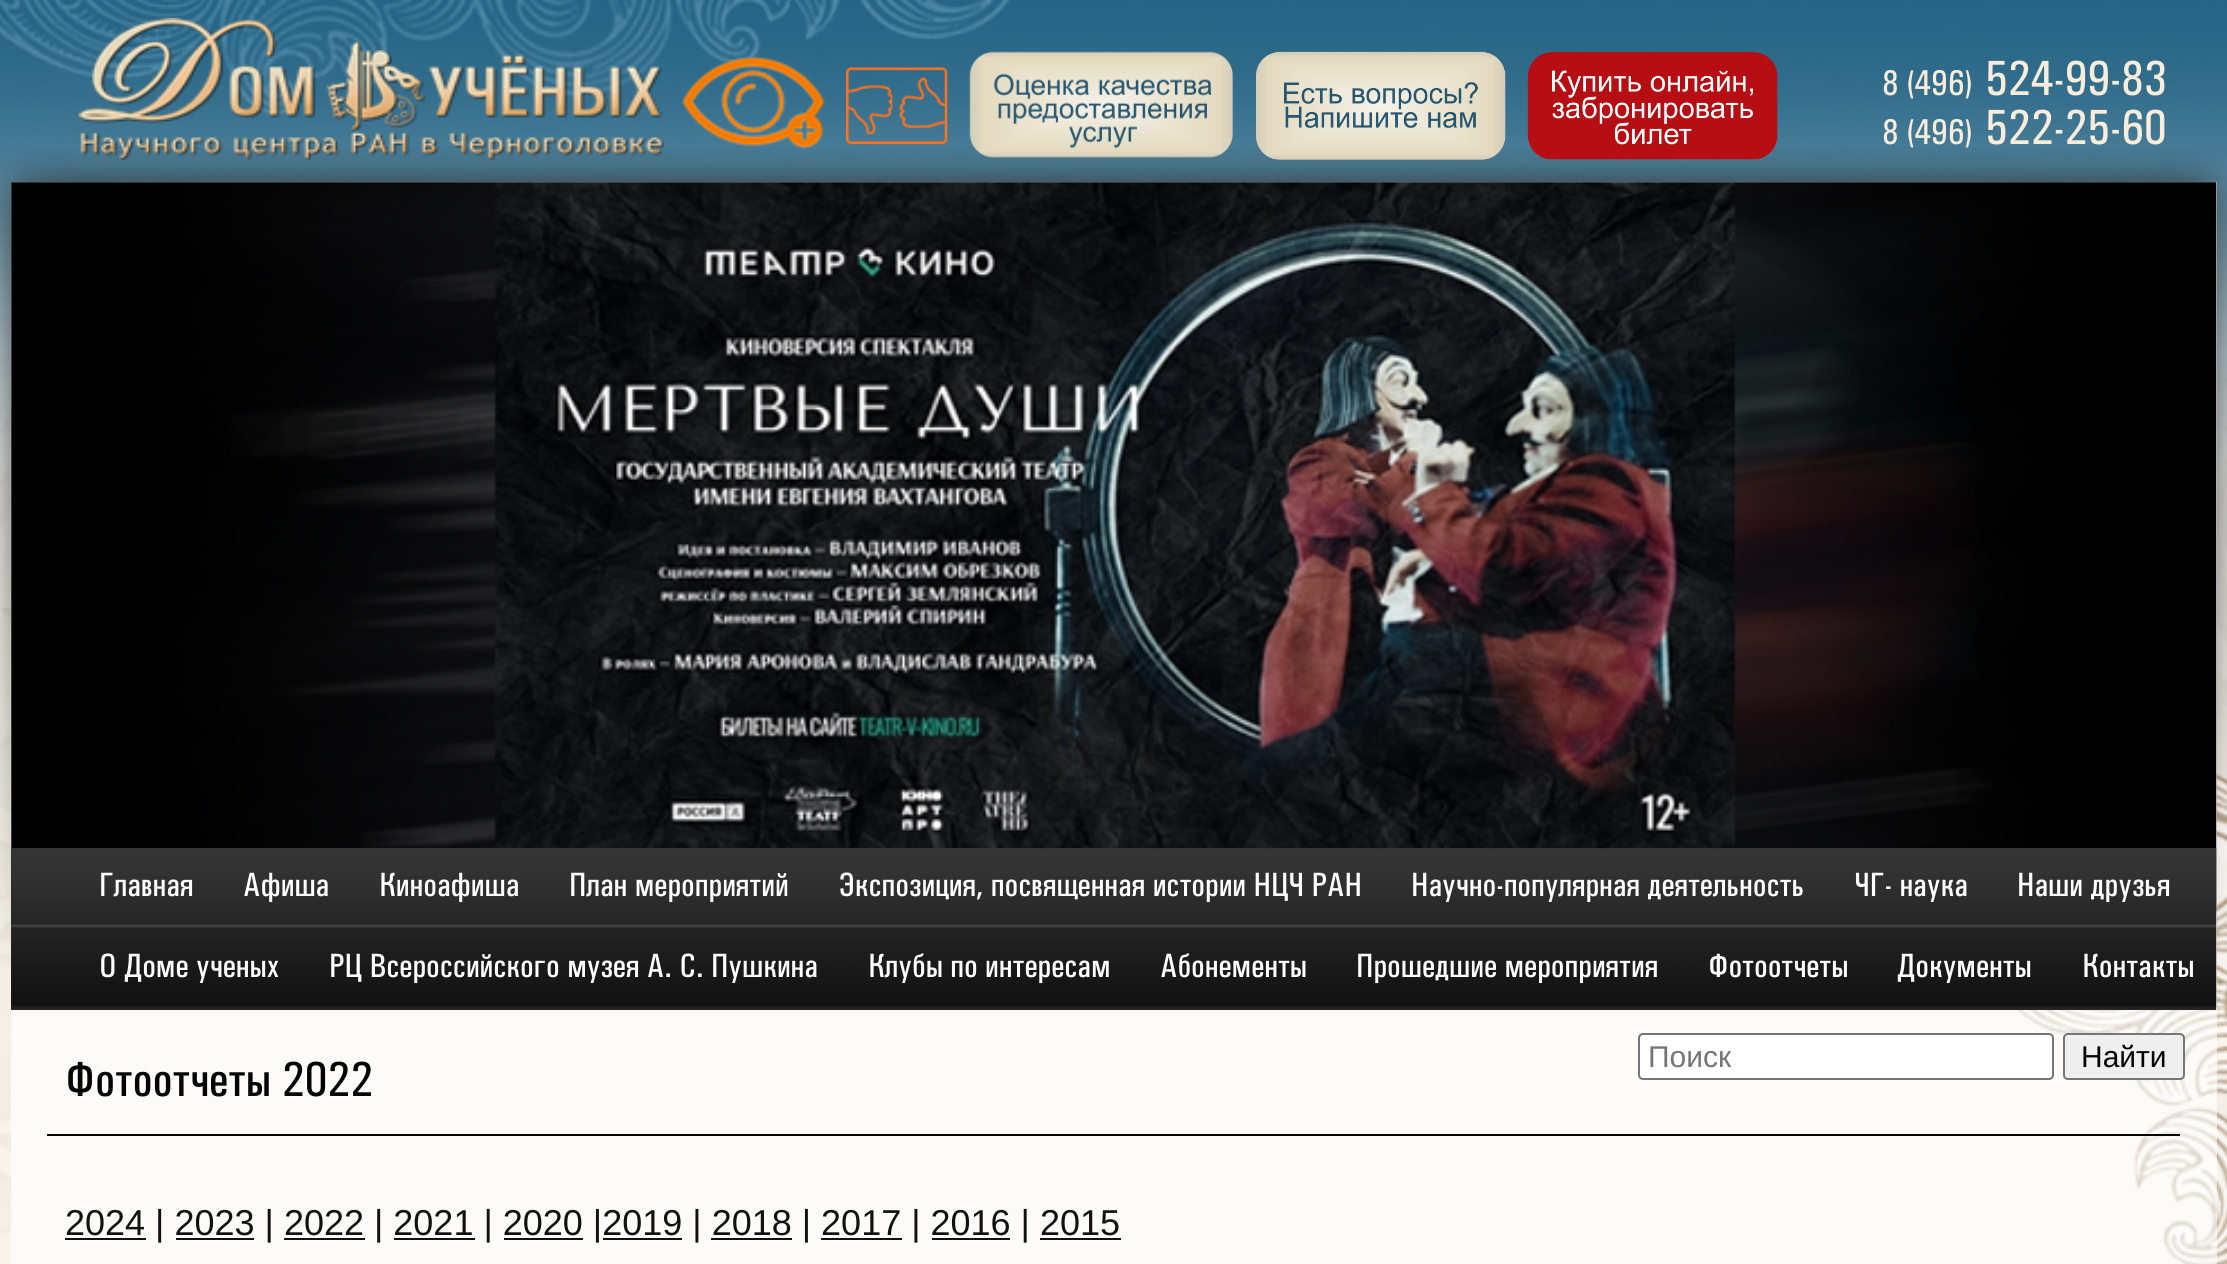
import math
import cairo

surface = cairo.ImageSurface(cairo.FORMAT_RGB24, 2227, 1264)
ctx = cairo.Context(surface)
options = cairo.FontOptions()
options.set_hint_metrics(cairo.HINT_METRICS_OFF)
options.set_hint_style(cairo.HINT_STYLE_NONE)
ctx.set_font_options(options)
ctx.set_miter_limit(4)


def round_rect(x, y, w, h, r):
    ctx.new_sub_path()
    for i, (u, v) in enumerate([(x + w - r, y + h - r), (x + r, y + h - r), (x + r, y + r), (x + w - r, y + r)]):
        ctx.arc(u, v, r, i * math.pi / 2, (i + 1) * math.pi / 2)
    ctx.close_path()


def picture(path, x, y, w, h):
    ctx.save()
    ctx.set_source_surface(cairo.ImageSurface.create_from_png(path), x, y)
    ctx.rectangle(x, y, w, h)
    ctx.fill()
    ctx.restore()


ctx.set_source_rgb(1, 1, 1)
ctx.paint()
picture("img1.png", 0, 0, 2227, 1264)
picture("img2.png", 0, 0, 1010, 116)
picture("img12.png", 11, 288, 2205, 976)
picture("img11.png", 0, 147, 2227, 822)
picture("img3.png", 78, 18, 586, 142)
picture("img4.png", 681, 56, 144, 93)
picture("img5.png", 846, 67, 102, 77)
picture("img6.png", 969, 51, 264, 107)
picture("img7.png", 1256, 51, 250, 109)
picture("img8.png", 1527, 52, 251, 108)
ctx.select_font_face("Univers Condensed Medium")
ctx.set_font_size(36)
ctx.set_source_rgb(0.969, 0.929, 0.855)
ctx.move_to(1882, 95)
ctx.show_text("8 (496)")
ctx.set_font_size(49.5)
ctx.move_to(1985, 95)
ctx.show_text("524-99-83")
ctx.set_font_size(36)
ctx.move_to(1882, 144)
ctx.show_text("8 (496)")
ctx.set_font_size(49.5)
ctx.move_to(1985, 144)
ctx.show_text("522-25-60")
picture("img13.png", 2014, 771, 213, 493)
ctx.set_source_rgba(1, 1, 1, 0.6)
ctx.rectangle(11, 182, 2206, 1082)
ctx.fill()
picture("img9.png", 11, 182, 2206, 730)
ctx.set_source_rgb(0.149, 0.149, 0.149)
ctx.rectangle(11, 848, 2205, 162)
ctx.fill()
picture("img10.png", 11, 848, 2206, 161)
ctx.set_font_size(33.75)
ctx.set_source_rgb(1, 1, 1)
ctx.move_to(99, 896)
ctx.show_text("Главная")
ctx.move_to(243, 896)
ctx.show_text("Афиша")
ctx.move_to(379, 896)
ctx.show_text("Киноафиша")
ctx.move_to(569, 896)
ctx.show_text("План мероприятий")
ctx.move_to(838, 896)
ctx.show_text("Экспозиция, посвященная истории НЦЧ РАН")
ctx.move_to(1411, 896)
ctx.show_text("Научно-популярная деятельность")
ctx.move_to(1854, 896)
ctx.show_text("ЧГ- наука")
ctx.move_to(2017, 896)
ctx.show_text("Наши друзья")
ctx.move_to(99, 977)
ctx.show_text("О Доме ученых")
ctx.move_to(329, 977)
ctx.show_text("РЦ Всероссийского музея А. С. Пушкина")
ctx.move_to(868, 977)
ctx.show_text("Клубы по интересам")
ctx.move_to(1160, 977)
ctx.show_text("Абонементы")
ctx.move_to(1356, 977)
ctx.show_text("Прошедшие мероприятия")
ctx.move_to(1708, 977)
ctx.show_text("Фотоотчеты")
ctx.move_to(1897, 977)
ctx.show_text("Документы")
ctx.move_to(2082, 977)
ctx.show_text("Контакты")
round_rect(1639, 1034, 414, 45, 4)
ctx.fill_preserve()
ctx.set_source_rgb(0.463, 0.463, 0.463)
ctx.stroke()
ctx.select_font_face("Liberation Sans")
ctx.set_font_size(30)
ctx.set_source_rgb(0.459, 0.459, 0.459)
ctx.move_to(1648, 1067)
ctx.show_text("Поиск")
ctx.set_source_rgb(0.937, 0.937, 0.937)
round_rect(2064, 1034, 120, 45, 4)
ctx.fill_preserve()
ctx.set_source_rgb(0.463, 0.463, 0.463)
ctx.stroke()
ctx.set_source_rgb(0.02, 0.02, 0.02)
ctx.move_to(2081, 1067)
ctx.show_text("Найти")
ctx.rectangle(47, 1134, 2133, 2)
ctx.fill()
ctx.select_font_face("Univers Condensed Medium")
ctx.set_font_size(49.5)
ctx.move_to(65, 1096)
ctx.show_text("Фотоотчеты 2022")
ctx.set_source_rgb(0.067, 0.067, 0.067)
ctx.rectangle(65, 1238, 81, 2)
ctx.fill()
ctx.select_font_face("Liberation Sans")
ctx.set_font_size(36)
ctx.move_to(65, 1235)
ctx.show_text("2024 | 2023 | 2022 | 2021 | 2020 |2019 | 2018 | 2017 | 2016 | 2015")
ctx.rectangle(176, 1238, 78, 2)
ctx.fill()
ctx.rectangle(284, 1238, 81, 2)
ctx.fill()
ctx.rectangle(394, 1238, 81, 2)
ctx.fill()
ctx.rectangle(504, 1238, 79, 2)
ctx.fill()
ctx.rectangle(603, 1238, 79, 2)
ctx.fill()
ctx.rectangle(711, 1238, 81, 2)
ctx.fill()
ctx.rectangle(821, 1238, 81, 2)
ctx.fill()
ctx.rectangle(932, 1238, 78, 2)
ctx.fill()
ctx.rectangle(1040, 1238, 81, 2)
ctx.fill()
surface.write_to_png("page.png")
